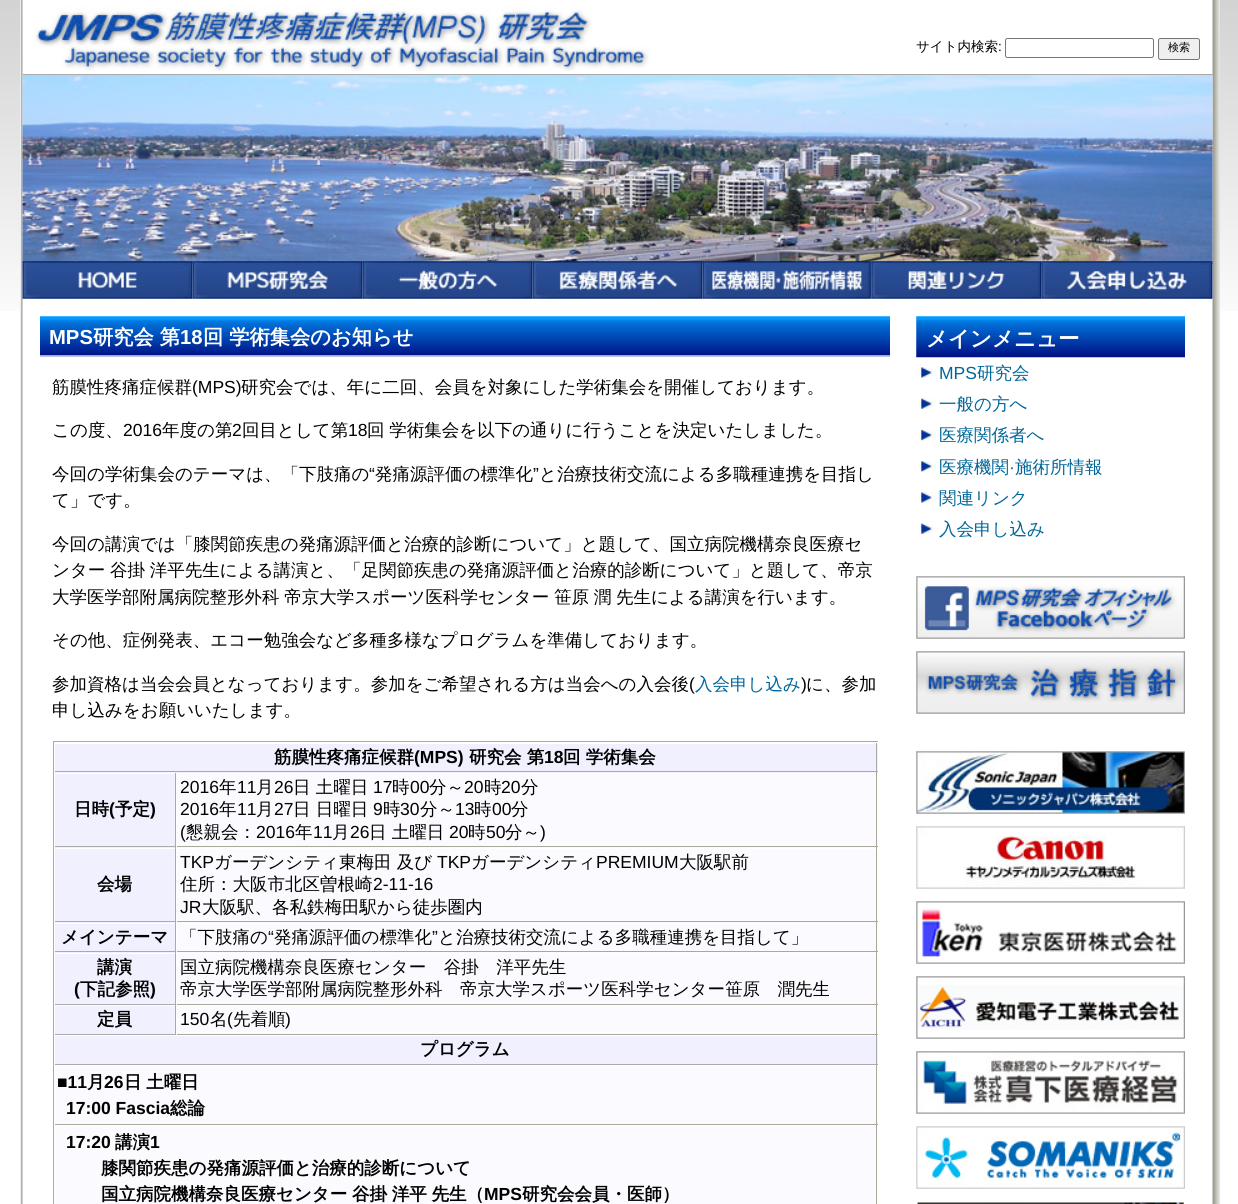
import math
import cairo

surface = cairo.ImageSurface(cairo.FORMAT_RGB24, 1238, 1204)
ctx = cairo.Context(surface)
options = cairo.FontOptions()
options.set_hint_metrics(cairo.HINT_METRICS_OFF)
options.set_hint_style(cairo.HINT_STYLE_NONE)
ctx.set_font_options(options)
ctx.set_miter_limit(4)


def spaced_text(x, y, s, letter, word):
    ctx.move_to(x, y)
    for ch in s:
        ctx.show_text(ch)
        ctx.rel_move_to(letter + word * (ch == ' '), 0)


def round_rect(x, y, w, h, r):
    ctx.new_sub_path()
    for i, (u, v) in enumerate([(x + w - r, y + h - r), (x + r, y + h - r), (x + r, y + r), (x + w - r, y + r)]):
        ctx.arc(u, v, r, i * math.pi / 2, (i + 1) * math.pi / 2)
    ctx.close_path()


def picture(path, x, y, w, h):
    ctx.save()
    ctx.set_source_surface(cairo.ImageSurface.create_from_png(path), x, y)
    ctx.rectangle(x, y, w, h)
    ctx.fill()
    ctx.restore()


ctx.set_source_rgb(1, 1, 1)
ctx.paint()
picture("img1.png", 0, 0, 1238, 311)
picture("img2.png", 20, 0, 1200, 1204)
picture("img3.png", 33, 6, 617, 65)
ctx.select_font_face("WenQuanYi Zen Hei Medium")
ctx.set_font_size(13.5)
ctx.set_source_rgb(0, 0, 0)
ctx.move_to(916, 51)
ctx.show_text("サイト内検索")
ctx.select_font_face("Liberation Sans")
ctx.move_to(998, 51)
ctx.show_text(":")
round_rect(1005.5, 38.5, 148, 19, 2)
ctx.set_source_rgb(0.463, 0.463, 0.463)
ctx.set_line_width(1)
ctx.stroke()
ctx.set_source_rgb(0.937, 0.937, 0.937)
round_rect(1158.5, 38.5, 41, 21, 2)
ctx.fill_preserve()
ctx.set_source_rgb(0.463, 0.463, 0.463)
ctx.stroke()
ctx.select_font_face("WenQuanYi Zen Hei Medium")
ctx.set_font_size(11)
ctx.set_source_rgb(0, 0, 0)
ctx.move_to(1168, 51)
ctx.show_text("検索")
ctx.set_source_rgb(0.667, 0.667, 0.667)
ctx.rectangle(23, 74, 1190, 1)
ctx.fill()
ctx.set_source_rgb(0.98, 0.98, 1)
ctx.rectangle(23, 262, 680, 37)
ctx.fill()
ctx.rectangle(871, 262, 170, 37)
ctx.fill()
ctx.rectangle(1041, 261, 172, 38)
ctx.fill()
picture("img4.png", 22, 75, 1191, 188)
ctx.set_source_rgb(0.667, 0.667, 0.667)
ctx.rectangle(192, 263, 1021, 1)
ctx.fill()
picture("img5.png", 22, 261, 171, 38)
picture("img6.png", 192, 261, 171, 38)
picture("img7.png", 362, 261, 171, 38)
picture("img8.png", 532, 261, 171, 38)
picture("img9.png", 702, 261, 170, 38)
picture("img10.png", 871, 261, 171, 38)
picture("img11.png", 1041, 261, 172, 38)
picture("img12.png", 40, 316, 850, 41)
ctx.rectangle(40, 355, 850, 1)
ctx.fill()
ctx.select_font_face("Liberation Sans", cairo.FONT_SLANT_NORMAL, cairo.FONT_WEIGHT_BOLD)
ctx.set_font_size(20.25)
ctx.set_source_rgb(1, 1, 1)
ctx.move_to(49, 344)
ctx.show_text("MPS")
ctx.select_font_face("WenQuanYi Zen Hei", cairo.FONT_SLANT_NORMAL, cairo.FONT_WEIGHT_BOLD)
ctx.move_to(93, 344)
ctx.show_text("研究会 第")
ctx.select_font_face("Liberation Sans", cairo.FONT_SLANT_NORMAL, cairo.FONT_WEIGHT_BOLD)
ctx.move_to(180, 344)
ctx.show_text("18")
ctx.select_font_face("WenQuanYi Zen Hei", cairo.FONT_SLANT_NORMAL, cairo.FONT_WEIGHT_BOLD)
ctx.move_to(203, 344)
ctx.show_text("回 学術集会のお知らせ")
ctx.select_font_face("WenQuanYi Zen Hei Medium")
ctx.set_font_size(17.5)
ctx.set_source_rgb(0, 0, 0)
ctx.move_to(52, 393)
ctx.show_text("筋膜性疼痛症候群")
ctx.select_font_face("Liberation Sans")
ctx.move_to(192, 393)
ctx.show_text("(MPS)")
ctx.select_font_face("WenQuanYi Zen Hei Medium")
ctx.move_to(241, 393)
ctx.show_text("研究会では、年に二回、会員を対象にした学術集会を開催しております。")
ctx.move_to(52, 436)
ctx.show_text("この度、")
ctx.select_font_face("Liberation Sans")
ctx.move_to(123, 436)
ctx.show_text("2016")
ctx.select_font_face("WenQuanYi Zen Hei Medium")
ctx.move_to(162, 436)
ctx.show_text("年度の第")
ctx.select_font_face("Liberation Sans")
ctx.move_to(232, 436)
ctx.show_text("2")
ctx.select_font_face("WenQuanYi Zen Hei Medium")
ctx.move_to(242, 436)
ctx.show_text("回目として第")
ctx.select_font_face("Liberation Sans")
ctx.move_to(348, 436)
ctx.show_text("18")
ctx.select_font_face("WenQuanYi Zen Hei Medium")
spaced_text(367, 436, "回 学術集会を以下の通りに行うことを決定いたしました。", 0, -0.5)
ctx.move_to(52, 480)
ctx.show_text("今回の学術集会のテーマは、「下肢痛の")
ctx.select_font_face("Liberation Sans")
ctx.move_to(369, 480)
ctx.show_text("“")
ctx.select_font_face("WenQuanYi Zen Hei Medium")
ctx.move_to(375, 480)
ctx.show_text("発痛源評価の標準化")
ctx.select_font_face("Liberation Sans")
ctx.move_to(533, 480)
ctx.show_text("”")
ctx.select_font_face("WenQuanYi Zen Hei Medium")
ctx.move_to(539, 480)
ctx.show_text("と治療技術交流による多職種連携を目指し")
ctx.move_to(52, 506)
ctx.show_text("て」です。")
ctx.move_to(52, 550)
ctx.show_text("今回の講演では「膝関節疾患の発痛源評価と治療的診断について」と題して、国立病院機構奈良医療セ")
spaced_text(52, 576, "ンター 谷掛 洋平先生による講演と、「足関節疾患の発痛源評価と治療的診断について」と題して、帝京", 0, -0.5)
spaced_text(52, 603, "大学医学部附属病院整形外科 帝京大学スポーツ医科学センター 笹原 潤 先生による講演を行います。", 0, -0.5)
ctx.move_to(52, 646)
ctx.show_text("その他、症例発表、エコー勉強会など多種多様なプログラムを準備しております。")
ctx.move_to(52, 690)
ctx.show_text("参加資格は当会会員となっております。参加をご希望される方は当会への入会後")
ctx.select_font_face("Liberation Sans")
ctx.move_to(689, 690)
ctx.show_text("(")
ctx.select_font_face("WenQuanYi Zen Hei Medium")
ctx.set_source_rgb(0, 0.4, 0.6)
ctx.move_to(695, 690)
ctx.show_text("入会申し込み")
ctx.select_font_face("Liberation Sans")
ctx.set_source_rgb(0, 0, 0)
ctx.move_to(801, 690)
ctx.show_text(")")
ctx.select_font_face("WenQuanYi Zen Hei Medium")
ctx.move_to(806, 690)
ctx.show_text("に、参加")
ctx.move_to(52, 716)
ctx.show_text("申し込みをお願いいたします。")
ctx.set_source_rgb(0.667, 0.667, 0.667)
ctx.rectangle(53, 741, 825, 1)
ctx.fill()
ctx.rectangle(53, 741, 1, 463)
ctx.fill()
ctx.set_source_rgb(0.941, 0.941, 1)
ctx.rectangle(55, 744, 823, 29)
ctx.fill()
ctx.set_source_rgb(0.667, 0.667, 0.667)
ctx.rectangle(876, 743, 1, 30)
ctx.fill()
ctx.rectangle(54, 771, 824, 1)
ctx.fill()
ctx.set_source_rgb(1, 1, 1)
ctx.rectangle(54, 771, 1, 2)
ctx.fill()
ctx.select_font_face("WenQuanYi Zen Hei", cairo.FONT_SLANT_NORMAL, cairo.FONT_WEIGHT_BOLD)
ctx.set_source_rgb(0, 0, 0)
ctx.move_to(274, 763)
ctx.show_text("筋膜性疼痛症候群")
ctx.select_font_face("Liberation Sans", cairo.FONT_SLANT_NORMAL, cairo.FONT_WEIGHT_BOLD)
ctx.move_to(414, 763)
ctx.show_text("(MPS)")
ctx.select_font_face("WenQuanYi Zen Hei", cairo.FONT_SLANT_NORMAL, cairo.FONT_WEIGHT_BOLD)
ctx.move_to(469, 763)
ctx.show_text("研究会 第")
ctx.select_font_face("Liberation Sans", cairo.FONT_SLANT_NORMAL, cairo.FONT_WEIGHT_BOLD)
ctx.move_to(544, 763)
ctx.show_text("18")
ctx.select_font_face("WenQuanYi Zen Hei", cairo.FONT_SLANT_NORMAL, cairo.FONT_WEIGHT_BOLD)
ctx.move_to(563, 763)
ctx.show_text("回 学術集会")
ctx.set_source_rgb(0.941, 0.941, 1)
ctx.rectangle(55, 774, 120, 74)
ctx.fill()
ctx.set_source_rgb(0.667, 0.667, 0.667)
ctx.rectangle(175, 773, 1, 262)
ctx.fill()
ctx.rectangle(54, 846, 122, 1)
ctx.fill()
ctx.set_source_rgb(1, 1, 1)
ctx.rectangle(54, 846, 1, 2)
ctx.fill()
ctx.set_source_rgb(0, 0, 0)
ctx.move_to(74, 815)
ctx.show_text("日時")
ctx.select_font_face("Liberation Sans", cairo.FONT_SLANT_NORMAL, cairo.FONT_WEIGHT_BOLD)
ctx.move_to(109, 815)
ctx.show_text("(")
ctx.select_font_face("WenQuanYi Zen Hei", cairo.FONT_SLANT_NORMAL, cairo.FONT_WEIGHT_BOLD)
ctx.move_to(115, 815)
ctx.show_text("予定")
ctx.select_font_face("Liberation Sans", cairo.FONT_SLANT_NORMAL, cairo.FONT_WEIGHT_BOLD)
ctx.move_to(150, 815)
ctx.show_text(")")
ctx.set_source_rgb(0.98, 0.98, 1)
ctx.rectangle(177, 774, 701, 74)
ctx.fill()
ctx.set_source_rgb(0.675, 0.659, 0.6)
ctx.rectangle(876, 773, 1, 75)
ctx.fill()
ctx.rectangle(176, 846, 702, 1)
ctx.fill()
ctx.set_source_rgb(1, 1, 1)
ctx.rectangle(176, 846, 1, 2)
ctx.fill()
ctx.select_font_face("Liberation Sans")
ctx.set_source_rgb(0, 0, 0)
ctx.move_to(180, 793)
ctx.show_text("2016")
ctx.select_font_face("WenQuanYi Zen Hei Medium")
ctx.move_to(219, 793)
ctx.show_text("年")
ctx.select_font_face("Liberation Sans")
ctx.move_to(237, 793)
ctx.show_text("11")
ctx.select_font_face("WenQuanYi Zen Hei Medium")
ctx.move_to(256, 793)
ctx.show_text("月")
ctx.select_font_face("Liberation Sans")
ctx.move_to(274, 793)
ctx.show_text("26")
ctx.select_font_face("WenQuanYi Zen Hei Medium")
ctx.move_to(293, 793)
ctx.show_text("日 土曜日")
ctx.select_font_face("Liberation Sans")
ctx.move_to(373, 793)
ctx.show_text("17")
ctx.select_font_face("WenQuanYi Zen Hei Medium")
ctx.move_to(392, 793)
ctx.show_text("時")
ctx.select_font_face("Liberation Sans")
ctx.move_to(410, 793)
ctx.show_text("00")
ctx.select_font_face("WenQuanYi Zen Hei Medium")
ctx.move_to(429, 793)
ctx.show_text("分～")
ctx.select_font_face("Liberation Sans")
ctx.move_to(464, 793)
ctx.show_text("20")
ctx.select_font_face("WenQuanYi Zen Hei Medium")
ctx.move_to(484, 793)
ctx.show_text("時")
ctx.select_font_face("Liberation Sans")
ctx.move_to(501, 793)
ctx.show_text("20")
ctx.select_font_face("WenQuanYi Zen Hei Medium")
ctx.move_to(521, 793)
ctx.show_text("分")
ctx.select_font_face("Liberation Sans")
ctx.move_to(180, 815)
ctx.show_text("2016")
ctx.select_font_face("WenQuanYi Zen Hei Medium")
ctx.move_to(219, 815)
ctx.show_text("年")
ctx.select_font_face("Liberation Sans")
ctx.move_to(237, 815)
ctx.show_text("11")
ctx.select_font_face("WenQuanYi Zen Hei Medium")
ctx.move_to(256, 815)
ctx.show_text("月")
ctx.select_font_face("Liberation Sans")
ctx.move_to(274, 815)
ctx.show_text("27")
ctx.select_font_face("WenQuanYi Zen Hei Medium")
ctx.move_to(293, 815)
ctx.show_text("日 日曜日")
ctx.select_font_face("Liberation Sans")
ctx.move_to(373, 815)
ctx.show_text("9")
ctx.select_font_face("WenQuanYi Zen Hei Medium")
ctx.move_to(383, 815)
ctx.show_text("時")
ctx.select_font_face("Liberation Sans")
ctx.move_to(400, 815)
ctx.show_text("30")
ctx.select_font_face("WenQuanYi Zen Hei Medium")
ctx.move_to(420, 815)
ctx.show_text("分～")
ctx.select_font_face("Liberation Sans")
ctx.move_to(455, 815)
ctx.show_text("13")
ctx.select_font_face("WenQuanYi Zen Hei Medium")
ctx.move_to(474, 815)
ctx.show_text("時")
ctx.select_font_face("Liberation Sans")
ctx.move_to(492, 815)
ctx.show_text("00")
ctx.select_font_face("WenQuanYi Zen Hei Medium")
ctx.move_to(511, 815)
ctx.show_text("分")
ctx.select_font_face("Liberation Sans")
ctx.move_to(180, 838)
ctx.show_text("(")
ctx.select_font_face("WenQuanYi Zen Hei Medium")
ctx.move_to(186, 838)
ctx.show_text("懇親会：")
ctx.select_font_face("Liberation Sans")
ctx.move_to(256, 838)
ctx.show_text("2016")
ctx.select_font_face("WenQuanYi Zen Hei Medium")
ctx.move_to(295, 838)
ctx.show_text("年")
ctx.select_font_face("Liberation Sans")
ctx.move_to(313, 838)
ctx.show_text("11")
ctx.select_font_face("WenQuanYi Zen Hei Medium")
ctx.move_to(332, 838)
ctx.show_text("月")
ctx.select_font_face("Liberation Sans")
ctx.move_to(350, 838)
ctx.show_text("26")
ctx.select_font_face("WenQuanYi Zen Hei Medium")
ctx.move_to(369, 838)
ctx.show_text("日 土曜日")
ctx.select_font_face("Liberation Sans")
ctx.move_to(449, 838)
ctx.show_text("20")
ctx.select_font_face("WenQuanYi Zen Hei Medium")
ctx.move_to(468, 838)
ctx.show_text("時")
ctx.select_font_face("Liberation Sans")
ctx.move_to(486, 838)
ctx.show_text("50")
ctx.select_font_face("WenQuanYi Zen Hei Medium")
ctx.move_to(505, 838)
ctx.show_text("分～")
ctx.select_font_face("Liberation Sans")
ctx.move_to(540, 838)
ctx.show_text(")")
ctx.set_source_rgb(0.941, 0.941, 1)
ctx.rectangle(55, 849, 120, 74)
ctx.fill()
ctx.set_source_rgb(0.667, 0.667, 0.667)
ctx.rectangle(54, 921, 122, 1)
ctx.fill()
ctx.set_source_rgb(1, 1, 1)
ctx.rectangle(54, 921, 1, 2)
ctx.fill()
ctx.select_font_face("WenQuanYi Zen Hei", cairo.FONT_SLANT_NORMAL, cairo.FONT_WEIGHT_BOLD)
ctx.set_source_rgb(0, 0, 0)
ctx.move_to(97, 890)
ctx.show_text("会場")
ctx.set_source_rgb(0.98, 0.98, 1)
ctx.rectangle(177, 849, 701, 74)
ctx.fill()
ctx.set_source_rgb(0.675, 0.659, 0.6)
ctx.rectangle(876, 848, 1, 75)
ctx.fill()
ctx.rectangle(176, 921, 702, 1)
ctx.fill()
ctx.set_source_rgb(1, 1, 1)
ctx.rectangle(176, 921, 1, 2)
ctx.fill()
ctx.select_font_face("Liberation Sans")
ctx.set_source_rgb(0, 0, 0)
ctx.move_to(180, 868)
ctx.show_text("TKP")
ctx.select_font_face("WenQuanYi Zen Hei Medium")
ctx.move_to(214, 868)
ctx.show_text("ガーデンシティ東梅田 及び")
ctx.select_font_face("Liberation Sans")
ctx.move_to(437, 868)
ctx.show_text("TKP")
ctx.select_font_face("WenQuanYi Zen Hei Medium")
ctx.move_to(471, 868)
ctx.show_text("ガーデンシティ")
ctx.select_font_face("Liberation Sans")
ctx.move_to(596, 868)
ctx.show_text("PREMIUM")
ctx.select_font_face("WenQuanYi Zen Hei Medium")
ctx.move_to(679, 868)
ctx.show_text("大阪駅前")
ctx.move_to(180, 890)
ctx.show_text("住所：大阪市北区曽根崎")
ctx.select_font_face("Liberation Sans")
ctx.move_to(373, 890)
ctx.show_text("2-11-16")
ctx.move_to(180, 913)
ctx.show_text("JR")
ctx.select_font_face("WenQuanYi Zen Hei Medium")
ctx.move_to(202, 913)
ctx.show_text("大阪駅、各私鉄梅田駅から徒歩圏内")
ctx.set_source_rgb(0.941, 0.941, 1)
ctx.rectangle(55, 924, 120, 29)
ctx.fill()
ctx.set_source_rgb(0.667, 0.667, 0.667)
ctx.rectangle(54, 951, 122, 1)
ctx.fill()
ctx.set_source_rgb(1, 1, 1)
ctx.rectangle(54, 951, 1, 2)
ctx.fill()
ctx.select_font_face("WenQuanYi Zen Hei", cairo.FONT_SLANT_NORMAL, cairo.FONT_WEIGHT_BOLD)
ctx.set_source_rgb(0, 0, 0)
ctx.move_to(61, 943)
ctx.show_text("メインテーマ")
ctx.set_source_rgb(0.98, 0.98, 1)
ctx.rectangle(177, 924, 701, 29)
ctx.fill()
ctx.set_source_rgb(0.675, 0.659, 0.6)
ctx.rectangle(876, 923, 1, 30)
ctx.fill()
ctx.rectangle(176, 951, 702, 1)
ctx.fill()
ctx.set_source_rgb(1, 1, 1)
ctx.rectangle(176, 951, 1, 2)
ctx.fill()
ctx.select_font_face("WenQuanYi Zen Hei Medium")
ctx.set_source_rgb(0, 0, 0)
ctx.move_to(180, 943)
ctx.show_text("「下肢痛の")
ctx.select_font_face("Liberation Sans")
ctx.move_to(268, 943)
ctx.show_text("“")
ctx.select_font_face("WenQuanYi Zen Hei Medium")
ctx.move_to(274, 943)
ctx.show_text("発痛源評価の標準化")
ctx.select_font_face("Liberation Sans")
ctx.move_to(432, 943)
ctx.show_text("”")
ctx.select_font_face("WenQuanYi Zen Hei Medium")
ctx.move_to(438, 943)
ctx.show_text("と治療技術交流による多職種連携を目指して」")
ctx.set_source_rgb(0.941, 0.941, 1)
ctx.rectangle(55, 954, 120, 50)
ctx.fill()
ctx.set_source_rgb(0.667, 0.667, 0.667)
ctx.rectangle(54, 1004, 122, 1)
ctx.fill()
ctx.set_source_rgb(1, 1, 1)
ctx.rectangle(54, 1004, 1, 1)
ctx.fill()
ctx.select_font_face("WenQuanYi Zen Hei", cairo.FONT_SLANT_NORMAL, cairo.FONT_WEIGHT_BOLD)
ctx.set_source_rgb(0, 0, 0)
ctx.move_to(97, 973)
ctx.show_text("講演")
ctx.select_font_face("Liberation Sans", cairo.FONT_SLANT_NORMAL, cairo.FONT_WEIGHT_BOLD)
ctx.move_to(74, 995)
ctx.show_text("(")
ctx.select_font_face("WenQuanYi Zen Hei", cairo.FONT_SLANT_NORMAL, cairo.FONT_WEIGHT_BOLD)
ctx.move_to(80, 995)
ctx.show_text("下記参照")
ctx.select_font_face("Liberation Sans", cairo.FONT_SLANT_NORMAL, cairo.FONT_WEIGHT_BOLD)
ctx.move_to(150, 995)
ctx.show_text(")")
ctx.set_source_rgb(0.98, 0.98, 1)
ctx.rectangle(177, 954, 701, 50)
ctx.fill()
ctx.set_source_rgb(0.675, 0.659, 0.6)
ctx.rectangle(876, 953, 1, 52)
ctx.fill()
ctx.rectangle(176, 1004, 702, 1)
ctx.fill()
ctx.set_source_rgb(1, 1, 1)
ctx.rectangle(176, 1004, 1, 1)
ctx.fill()
ctx.select_font_face("WenQuanYi Zen Hei Medium")
ctx.set_source_rgb(0, 0, 0)
ctx.move_to(180, 973)
ctx.show_text("国立病院機構奈良医療センター　谷掛　洋平先生")
ctx.move_to(180, 995)
ctx.show_text("帝京大学医学部附属病院整形外科　帝京大学スポーツ医科学センター笹原　潤先生")
ctx.set_source_rgb(0.941, 0.941, 1)
ctx.rectangle(55, 1006, 120, 28)
ctx.fill()
ctx.set_source_rgb(0.667, 0.667, 0.667)
ctx.rectangle(54, 1034, 122, 1)
ctx.fill()
ctx.set_source_rgb(1, 1, 1)
ctx.rectangle(54, 1034, 1, 1)
ctx.fill()
ctx.select_font_face("WenQuanYi Zen Hei", cairo.FONT_SLANT_NORMAL, cairo.FONT_WEIGHT_BOLD)
ctx.set_source_rgb(0, 0, 0)
ctx.move_to(97, 1025)
ctx.show_text("定員")
ctx.set_source_rgb(0.98, 0.98, 1)
ctx.rectangle(177, 1006, 701, 28)
ctx.fill()
ctx.set_source_rgb(0.675, 0.659, 0.6)
ctx.rectangle(876, 1005, 1, 30)
ctx.fill()
ctx.rectangle(176, 1034, 702, 1)
ctx.fill()
ctx.set_source_rgb(1, 1, 1)
ctx.rectangle(176, 1034, 1, 1)
ctx.fill()
ctx.select_font_face("Liberation Sans")
ctx.set_source_rgb(0, 0, 0)
ctx.move_to(180, 1025)
ctx.show_text("150")
ctx.select_font_face("WenQuanYi Zen Hei Medium")
ctx.move_to(210, 1025)
ctx.show_text("名")
ctx.select_font_face("Liberation Sans")
ctx.move_to(227, 1025)
ctx.show_text("(")
ctx.select_font_face("WenQuanYi Zen Hei Medium")
ctx.move_to(233, 1025)
ctx.show_text("先着順")
ctx.select_font_face("Liberation Sans")
ctx.move_to(285, 1025)
ctx.show_text(")")
ctx.set_source_rgb(0.941, 0.941, 1)
ctx.rectangle(55, 1036, 823, 28)
ctx.fill()
ctx.set_source_rgb(0.667, 0.667, 0.667)
ctx.rectangle(876, 1035, 1, 30)
ctx.fill()
ctx.rectangle(54, 1064, 824, 1)
ctx.fill()
ctx.set_source_rgb(1, 1, 1)
ctx.rectangle(54, 1064, 1, 1)
ctx.fill()
ctx.select_font_face("WenQuanYi Zen Hei", cairo.FONT_SLANT_NORMAL, cairo.FONT_WEIGHT_BOLD)
ctx.set_source_rgb(0, 0, 0)
ctx.move_to(420, 1055)
ctx.show_text("プログラム")
ctx.set_source_rgb(0.98, 0.98, 1)
ctx.rectangle(55, 1066, 823, 58)
ctx.fill()
ctx.set_source_rgb(0.675, 0.659, 0.6)
ctx.rectangle(876, 1065, 1, 60)
ctx.fill()
ctx.rectangle(54, 1124, 824, 1)
ctx.fill()
ctx.set_source_rgb(1, 1, 1)
ctx.rectangle(54, 1124, 1, 1)
ctx.fill()
ctx.select_font_face("Liberation Sans", cairo.FONT_SLANT_NORMAL, cairo.FONT_WEIGHT_BOLD)
ctx.set_source_rgb(0, 0, 0)
ctx.move_to(57, 1088)
ctx.show_text("■11")
ctx.select_font_face("WenQuanYi Zen Hei", cairo.FONT_SLANT_NORMAL, cairo.FONT_WEIGHT_BOLD)
ctx.move_to(87, 1088)
ctx.show_text("月")
ctx.select_font_face("Liberation Sans", cairo.FONT_SLANT_NORMAL, cairo.FONT_WEIGHT_BOLD)
ctx.move_to(104, 1088)
ctx.show_text("26")
ctx.select_font_face("WenQuanYi Zen Hei", cairo.FONT_SLANT_NORMAL, cairo.FONT_WEIGHT_BOLD)
spaced_text(124, 1088, "日 土曜日", 0, -0.5)
ctx.select_font_face("Liberation Sans", cairo.FONT_SLANT_NORMAL, cairo.FONT_WEIGHT_BOLD)
ctx.move_to(66, 1114)
ctx.show_text("17:00 Fascia")
ctx.select_font_face("WenQuanYi Zen Hei", cairo.FONT_SLANT_NORMAL, cairo.FONT_WEIGHT_BOLD)
ctx.move_to(170, 1114)
ctx.show_text("総論")
ctx.set_source_rgb(0.98, 0.98, 1)
ctx.rectangle(55, 1126, 823, 78)
ctx.fill()
ctx.set_source_rgb(0.675, 0.659, 0.6)
ctx.rectangle(876, 1125, 1, 79)
ctx.fill()
ctx.select_font_face("Liberation Sans", cairo.FONT_SLANT_NORMAL, cairo.FONT_WEIGHT_BOLD)
ctx.set_source_rgb(0, 0, 0)
ctx.move_to(66, 1148)
ctx.show_text("17:20")
ctx.select_font_face("WenQuanYi Zen Hei", cairo.FONT_SLANT_NORMAL, cairo.FONT_WEIGHT_BOLD)
ctx.move_to(115, 1148)
ctx.show_text("講演")
ctx.select_font_face("Liberation Sans", cairo.FONT_SLANT_NORMAL, cairo.FONT_WEIGHT_BOLD)
ctx.move_to(150, 1148)
ctx.show_text("1")
ctx.select_font_face("WenQuanYi Zen Hei", cairo.FONT_SLANT_NORMAL, cairo.FONT_WEIGHT_BOLD)
ctx.move_to(101, 1174)
ctx.show_text("膝関節疾患の発痛源評価と治療的診断について")
spaced_text(101, 1200, "国立病院機構奈良医療センター 谷掛 洋平 先生（", 0, -0.5)
ctx.select_font_face("Liberation Sans", cairo.FONT_SLANT_NORMAL, cairo.FONT_WEIGHT_BOLD)
ctx.move_to(484, 1200)
ctx.show_text("MPS")
ctx.select_font_face("WenQuanYi Zen Hei", cairo.FONT_SLANT_NORMAL, cairo.FONT_WEIGHT_BOLD)
ctx.move_to(522, 1200)
ctx.show_text("研究会会員・医師）")
picture("img13.png", 916, 316, 269, 42)
ctx.set_font_size(21.5)
ctx.set_source_rgb(1, 1, 1)
ctx.move_to(926, 346)
ctx.show_text("メインメニュー")
picture("img14.png", 916, 357, 269, 21)
ctx.select_font_face("Liberation Sans")
ctx.set_font_size(17.5)
ctx.set_source_rgb(0, 0.4, 0.6)
ctx.move_to(939, 379)
ctx.show_text("MPS")
ctx.select_font_face("WenQuanYi Zen Hei Medium")
ctx.move_to(977, 379)
ctx.show_text("研究会")
picture("img15.png", 919, 398, 18, 11)
ctx.move_to(939, 410)
ctx.show_text("一般の方へ")
picture("img16.png", 919, 429, 18, 12)
ctx.move_to(939, 441)
ctx.show_text("医療関係者へ")
picture("img17.png", 919, 461, 18, 11)
ctx.move_to(939, 473)
ctx.show_text("医療機関")
ctx.select_font_face("Liberation Sans")
ctx.move_to(1009, 473)
ctx.show_text("·")
ctx.select_font_face("WenQuanYi Zen Hei Medium")
ctx.move_to(1015, 473)
ctx.show_text("施術所情報")
picture("img18.png", 919, 492, 18, 11)
ctx.move_to(939, 504)
ctx.show_text("関連リンク")
picture("img15.png", 919, 523, 18, 11)
ctx.move_to(939, 535)
ctx.show_text("入会申し込み")
picture("img19.png", 916, 576, 269, 63)
picture("img20.png", 916, 651, 269, 63)
picture("img21.png", 916, 751, 269, 63)
picture("img22.png", 916, 826, 269, 63)
picture("img23.png", 916, 901, 269, 63)
picture("img24.png", 916, 976, 269, 63)
picture("img25.png", 916, 1051, 269, 63)
picture("img26.png", 916, 1126, 269, 63)
picture("img27.png", 917, 1202, 267, 2)
surface.write_to_png("page.png")
